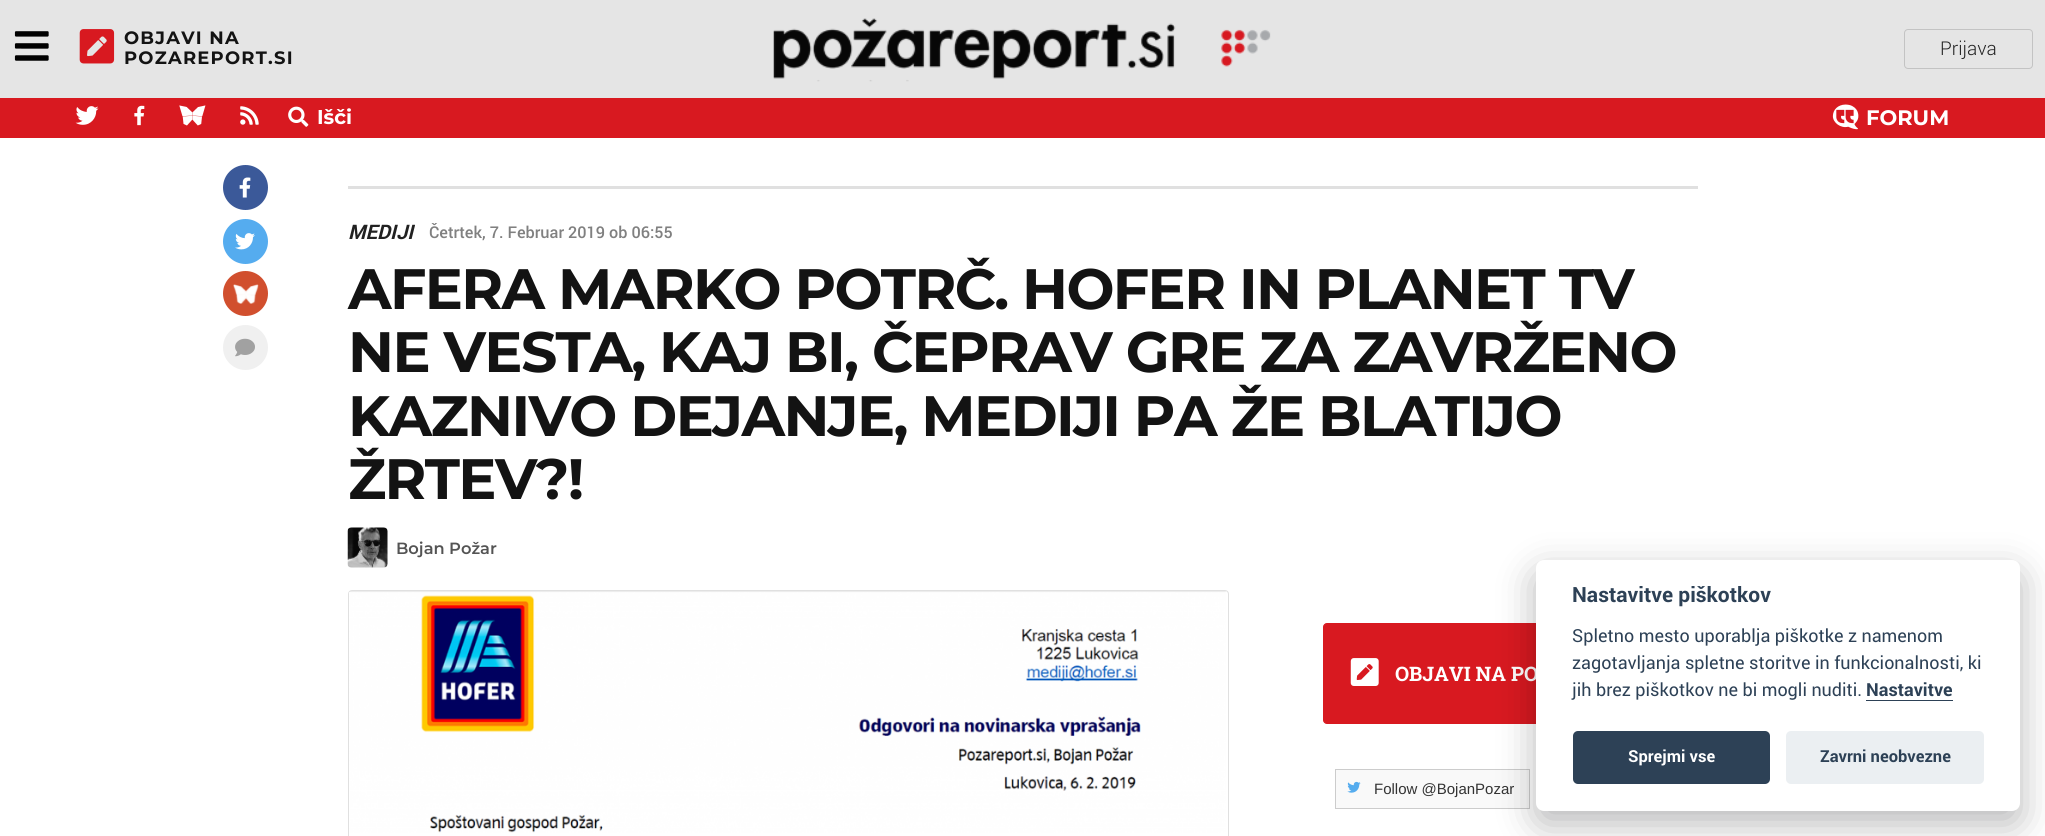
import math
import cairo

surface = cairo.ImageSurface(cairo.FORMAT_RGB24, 2045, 836)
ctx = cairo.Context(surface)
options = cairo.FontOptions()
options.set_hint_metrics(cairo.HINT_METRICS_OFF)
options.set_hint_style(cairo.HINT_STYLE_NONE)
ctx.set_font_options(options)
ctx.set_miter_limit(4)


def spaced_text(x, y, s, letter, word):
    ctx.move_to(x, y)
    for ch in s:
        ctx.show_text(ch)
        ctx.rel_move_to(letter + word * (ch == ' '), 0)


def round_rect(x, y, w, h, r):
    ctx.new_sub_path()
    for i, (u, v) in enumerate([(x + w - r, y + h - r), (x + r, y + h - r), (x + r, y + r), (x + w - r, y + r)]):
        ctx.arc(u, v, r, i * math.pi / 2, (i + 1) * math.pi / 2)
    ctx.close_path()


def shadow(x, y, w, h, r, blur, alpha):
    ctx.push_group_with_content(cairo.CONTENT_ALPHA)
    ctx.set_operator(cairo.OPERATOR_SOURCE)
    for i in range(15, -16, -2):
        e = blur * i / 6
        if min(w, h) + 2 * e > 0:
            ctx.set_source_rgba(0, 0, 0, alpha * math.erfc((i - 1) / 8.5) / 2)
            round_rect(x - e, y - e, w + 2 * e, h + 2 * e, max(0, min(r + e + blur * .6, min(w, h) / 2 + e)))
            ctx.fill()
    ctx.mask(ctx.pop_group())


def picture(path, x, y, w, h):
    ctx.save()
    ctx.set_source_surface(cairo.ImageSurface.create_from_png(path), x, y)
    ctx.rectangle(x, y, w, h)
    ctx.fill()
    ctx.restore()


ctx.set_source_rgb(1, 1, 1)
ctx.paint()
ctx.set_source_rgb(0.898, 0.898, 0.898)
ctx.rectangle(0, 0, 2045, 98)
ctx.fill()
picture("img1.png", 14, 31, 35, 30)
picture("img2.png", 79, 29, 36, 35)
ctx.select_font_face("Montserrat", cairo.FONT_SLANT_NORMAL, cairo.FONT_WEIGHT_BOLD)
ctx.set_font_size(17.9)
ctx.set_source_rgb(0.078, 0.078, 0.078)
spaced_text(124, 44, "OBJAVI NA", 1.25, 0)
spaced_text(124, 64, "POZAREPORT.SI", 1.25, 0)
round_rect(1904.5, 29.5, 128, 39, 3.5)
ctx.set_source_rgb(0.765, 0.765, 0.765)
ctx.set_line_width(1)
ctx.stroke()
ctx.select_font_face("Roboto Light")
ctx.set_font_size(19)
ctx.set_source_rgb(0.129, 0.129, 0.129)
ctx.move_to(1940, 55)
ctx.show_text("Prijava")
picture("img3.png", 773, 18, 498, 64)
ctx.set_source_rgb(0.847, 0.098, 0.125)
ctx.rectangle(0, 98, 2045, 40)
ctx.fill()
picture("img4.png", 75, 106, 24, 19)
picture("img5.png", 134, 105, 11, 21)
picture("img6.png", 179, 105, 27, 21)
picture("img7.png", 240, 106, 19, 19)
picture("img8.png", 288, 106, 21, 21)
ctx.select_font_face("Montserrat", cairo.FONT_SLANT_NORMAL, cairo.FONT_WEIGHT_BOLD)
ctx.set_font_size(20)
ctx.set_source_rgb(1, 1, 1)
ctx.move_to(317, 124)
ctx.show_text("Išči")
picture("img9.png", 1832, 104, 27, 26)
ctx.set_font_size(21)
ctx.move_to(1866, 125)
ctx.show_text("FORUM")
ctx.set_source_rgb(0.231, 0.349, 0.6)
ctx.new_path()
ctx.arc(245.5, 187.5, 22.5, 0, 2 * math.pi)
ctx.fill()
picture("img10.png", 239, 177, 12, 21)
ctx.set_source_rgb(0.333, 0.675, 0.937)
ctx.arc(245.5, 241.5, 22.5, 0, 2 * math.pi)
ctx.fill()
picture("img11.png", 235, 233, 20, 17)
ctx.set_source_rgb(0.82, 0.31, 0.18)
ctx.arc(245.5, 293.5, 22.5, 0, 2 * math.pi)
ctx.fill()
picture("img12.png", 233, 284, 26, 20)
ctx.set_source_rgb(0.941, 0.941, 0.941)
ctx.arc(245.5, 347.5, 22.5, 0, 2 * math.pi)
ctx.fill()
picture("img13.png", 235, 338, 20, 19)
ctx.set_source_rgb(0.878, 0.878, 0.878)
ctx.rectangle(348, 186, 1350, 3)
ctx.fill()
ctx.select_font_face("Roboto", cairo.FONT_SLANT_ITALIC, cairo.FONT_WEIGHT_BOLD)
ctx.set_font_size(20)
ctx.set_source_rgb(0.129, 0.129, 0.129)
ctx.move_to(348, 239)
ctx.show_text("MEDIJI")
ctx.select_font_face("Roboto Medium")
ctx.set_font_size(16.25)
ctx.set_source_rgb(0.502, 0.502, 0.502)
ctx.move_to(429, 238)
ctx.show_text("Četrtek, 7. Februar 2019 ob 06:55")
ctx.select_font_face("Montserrat", cairo.FONT_SLANT_NORMAL, cairo.FONT_WEIGHT_BOLD)
ctx.set_font_size(56.9)
ctx.set_source_rgb(0.078, 0.078, 0.078)
spaced_text(348, 309, "AFERA MARKO POTRČ. HOFER IN PLANET TV", -1.6, 0)
spaced_text(348, 372, "NE VESTA, KAJ BI, ČEPRAV GRE ZA ZAVRŽENO", -1.6, 0)
spaced_text(348, 436, "KAZNIVO DEJANJE, MEDIJI PA ŽE BLATIJO", -1.6, 0)
spaced_text(348, 499, "ŽRTEV?!", -1.6, 0)
picture("img14.png", 347, 527, 41, 41)
ctx.select_font_face("Montserrat SemiBold")
ctx.set_font_size(16.25)
ctx.set_source_rgb(0.329, 0.329, 0.329)
ctx.move_to(396, 554)
ctx.show_text("Bojan Požar")
round_rect(348.5, 590.5, 880, 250, 3.5)
ctx.set_source_rgb(0.878, 0.878, 0.878)
ctx.stroke()
picture("img15.png", 349, 591, 877, 242)
ctx.set_source_rgb(0.847, 0.098, 0.125)
round_rect(1323.5, 623.5, 374, 100, 3.5)
ctx.fill_preserve()
ctx.stroke()
picture("img16.png", 1350, 658, 29, 28)
ctx.select_font_face("Roboto Slab", cairo.FONT_SLANT_NORMAL, cairo.FONT_WEIGHT_BOLD)
ctx.set_font_size(20)
ctx.set_source_rgb(1, 1, 1)
ctx.move_to(1395, 681)
ctx.show_text("OBJAVI NA PO")
ctx.set_source_rgb(0.973, 0.973, 0.973)
ctx.rectangle(1336, 770, 193, 38)
ctx.fill()
picture("img17.png", 1347, 781, 14, 12)
ctx.rectangle(1335.5, 769.5, 194, 39)
ctx.set_source_rgb(0.8, 0.8, 0.8)
ctx.stroke()
ctx.select_font_face("Liberation Sans")
ctx.set_font_size(15)
ctx.set_source_rgb(0.2, 0.2, 0.2)
ctx.move_to(1374, 794)
ctx.show_text("Follow @BojanPozar")
ctx.set_source_rgb(0.008, 0.008, 0.012)
shadow(1536, 573, 484, 251, 8, 19, 0.28)
ctx.set_source_rgb(1, 1, 1)
round_rect(1536, 560, 484, 251, 8)
ctx.fill()
ctx.select_font_face("Roboto", cairo.FONT_SLANT_NORMAL, cairo.FONT_WEIGHT_BOLD)
ctx.set_font_size(21)
ctx.set_source_rgb(0.176, 0.255, 0.337)
ctx.move_to(1572, 602)
ctx.show_text("Nastavitve piškotkov")
ctx.select_font_face("Roboto")
ctx.set_font_size(18)
ctx.move_to(1572, 642)
ctx.show_text("Spletno mesto uporablja piškotke z namenom")
ctx.move_to(1572, 669)
ctx.show_text("zagotavljanja spletne storitve in funkcionalnosti, ki")
ctx.move_to(1572, 696)
ctx.show_text("jih brez piškotkov ne bi mogli nuditi.")
ctx.select_font_face("Roboto", cairo.FONT_SLANT_NORMAL, cairo.FONT_WEIGHT_BOLD)
ctx.move_to(1866, 696)
ctx.show_text("Nastavitve")
ctx.rectangle(1866, 700, 87, 1)
ctx.fill()
round_rect(1573, 731, 197, 53, 5)
ctx.fill()
ctx.set_font_size(16.5)
ctx.set_source_rgb(1, 1, 1)
ctx.move_to(1628, 762)
ctx.show_text("Sprejmi vse")
ctx.set_source_rgb(0.918, 0.937, 0.949)
round_rect(1786, 731, 198, 53, 5)
ctx.fill()
ctx.set_source_rgb(0.176, 0.255, 0.337)
ctx.move_to(1820, 762)
ctx.show_text("Zavrni neobvezne")
surface.write_to_png("page.png")
